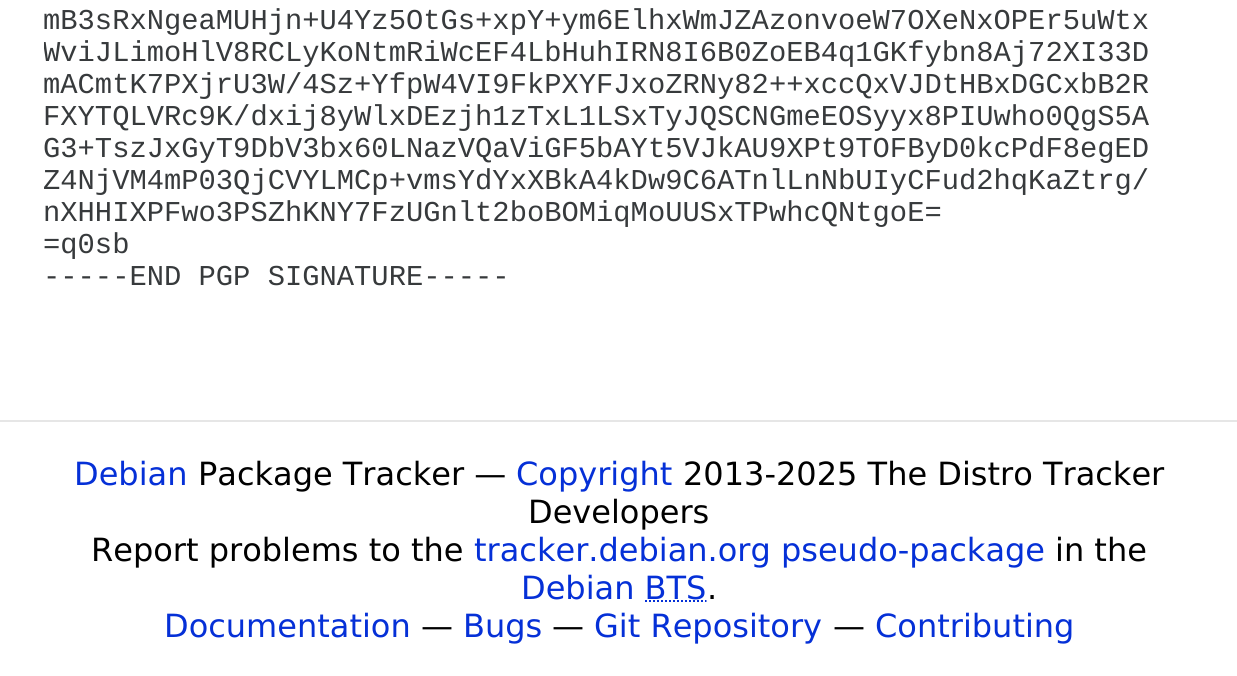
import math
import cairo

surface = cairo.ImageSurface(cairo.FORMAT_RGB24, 1237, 676)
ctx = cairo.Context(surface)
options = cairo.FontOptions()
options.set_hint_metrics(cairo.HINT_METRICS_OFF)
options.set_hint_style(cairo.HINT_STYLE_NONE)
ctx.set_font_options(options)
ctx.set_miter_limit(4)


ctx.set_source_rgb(1, 1, 1)
ctx.paint()
ctx.select_font_face("Liberation Mono")
ctx.set_font_size(28.8)
ctx.set_source_rgb(0.216, 0.227, 0.235)
ctx.move_to(43, 29)
ctx.show_text("mB3sRxNgeaMUHjn+U4Yz5OtGs+xpY+ym6ElhxWmJZAzonvoeW7OXeNxOPEr5uWtx")
ctx.save()
ctx.rectangle(44, 0, 1152, 356)
ctx.clip()
ctx.move_to(43, 61)
ctx.show_text("WviJLimoHlV8RCLyKoNtmRiWcEF4LbHuhIRN8I6B0ZoEB4q1GKfybn8Aj72XI33D")
ctx.restore()
ctx.move_to(43, 93)
ctx.show_text("mACmtK7PXjrU3W/4Sz+YfpW4VI9FkPXYFJxoZRNy82++xccQxVJDtHBxDGCxbB2R")
ctx.move_to(43, 125)
ctx.show_text("FXYTQLVRc9K/dxij8yWlxDEzjh1zTxL1LSxTyJQSCNGmeEOSyyx8PIUwho0QgS5A")
ctx.move_to(43, 157)
ctx.show_text("G3+TszJxGyT9DbV3bx60LNazVQaViGF5bAYt5VJkAU9XPt9TOFByD0kcPdF8egED")
ctx.move_to(43, 189)
ctx.show_text("Z4NjVM4mP03QjCVYLMCp+vmsYdYxXBkA4kDw9C6ATnlLnNbUIyCFud2hqKaZtrg/")
ctx.move_to(43, 221)
ctx.show_text("nXHHIXPFwo3PSZhKNY7FzUGnlt2boBOMiqMoUUSxTPwhcQNtgoE=")
ctx.move_to(43, 253)
ctx.show_text("=q0sb")
ctx.move_to(43, 285)
ctx.show_text("-----END PGP SIGNATURE-----")
ctx.set_source_rgb(0.902, 0.902, 0.902)
ctx.rectangle(0, 420, 1237, 2)
ctx.fill()
ctx.select_font_face("DejaVu Sans")
ctx.set_font_size(32)
ctx.set_source_rgb(0.02, 0.188, 0.843)
ctx.move_to(74, 485)
ctx.show_text("Debian")
ctx.set_source_rgb(0, 0, 0)
ctx.move_to(198, 485)
ctx.show_text("Package Tracker —")
ctx.set_source_rgb(0.02, 0.188, 0.843)
ctx.move_to(516, 485)
ctx.show_text("Copyright")
ctx.set_source_rgb(0, 0, 0)
ctx.move_to(683, 485)
ctx.show_text("2013-2025 The Distro Tracker")
ctx.move_to(528, 523)
ctx.show_text("Developers")
ctx.move_to(91, 561)
ctx.show_text("Report problems to the")
ctx.set_source_rgb(0.02, 0.188, 0.843)
ctx.move_to(474, 561)
ctx.show_text("tracker.debian.org pseudo-package")
ctx.set_source_rgb(0, 0, 0)
ctx.move_to(1055, 561)
ctx.show_text("in the")
ctx.set_source_rgb(0.02, 0.188, 0.843)
ctx.move_to(521, 599)
ctx.show_text("Debian BTS")
ctx.new_path()
ctx.move_to(645, 601)
ctx.line_to(706.5, 601)
ctx.set_dash([2, 2])
ctx.stroke()
ctx.set_source_rgb(0, 0, 0)
ctx.move_to(707, 599)
ctx.show_text(".")
ctx.set_source_rgb(0.02, 0.188, 0.843)
ctx.move_to(164, 637)
ctx.show_text("Documentation")
ctx.set_source_rgb(0, 0, 0)
ctx.move_to(421, 637)
ctx.show_text("—")
ctx.set_source_rgb(0.02, 0.188, 0.843)
ctx.move_to(463, 637)
ctx.show_text("Bugs")
ctx.set_source_rgb(0, 0, 0)
ctx.move_to(552, 637)
ctx.show_text("—")
ctx.set_source_rgb(0.02, 0.188, 0.843)
ctx.move_to(594, 637)
ctx.show_text("Git Repository")
ctx.set_source_rgb(0, 0, 0)
ctx.move_to(833, 637)
ctx.show_text("—")
ctx.set_source_rgb(0.02, 0.188, 0.843)
ctx.move_to(875, 637)
ctx.show_text("Contributing")
surface.write_to_png("page.png")
